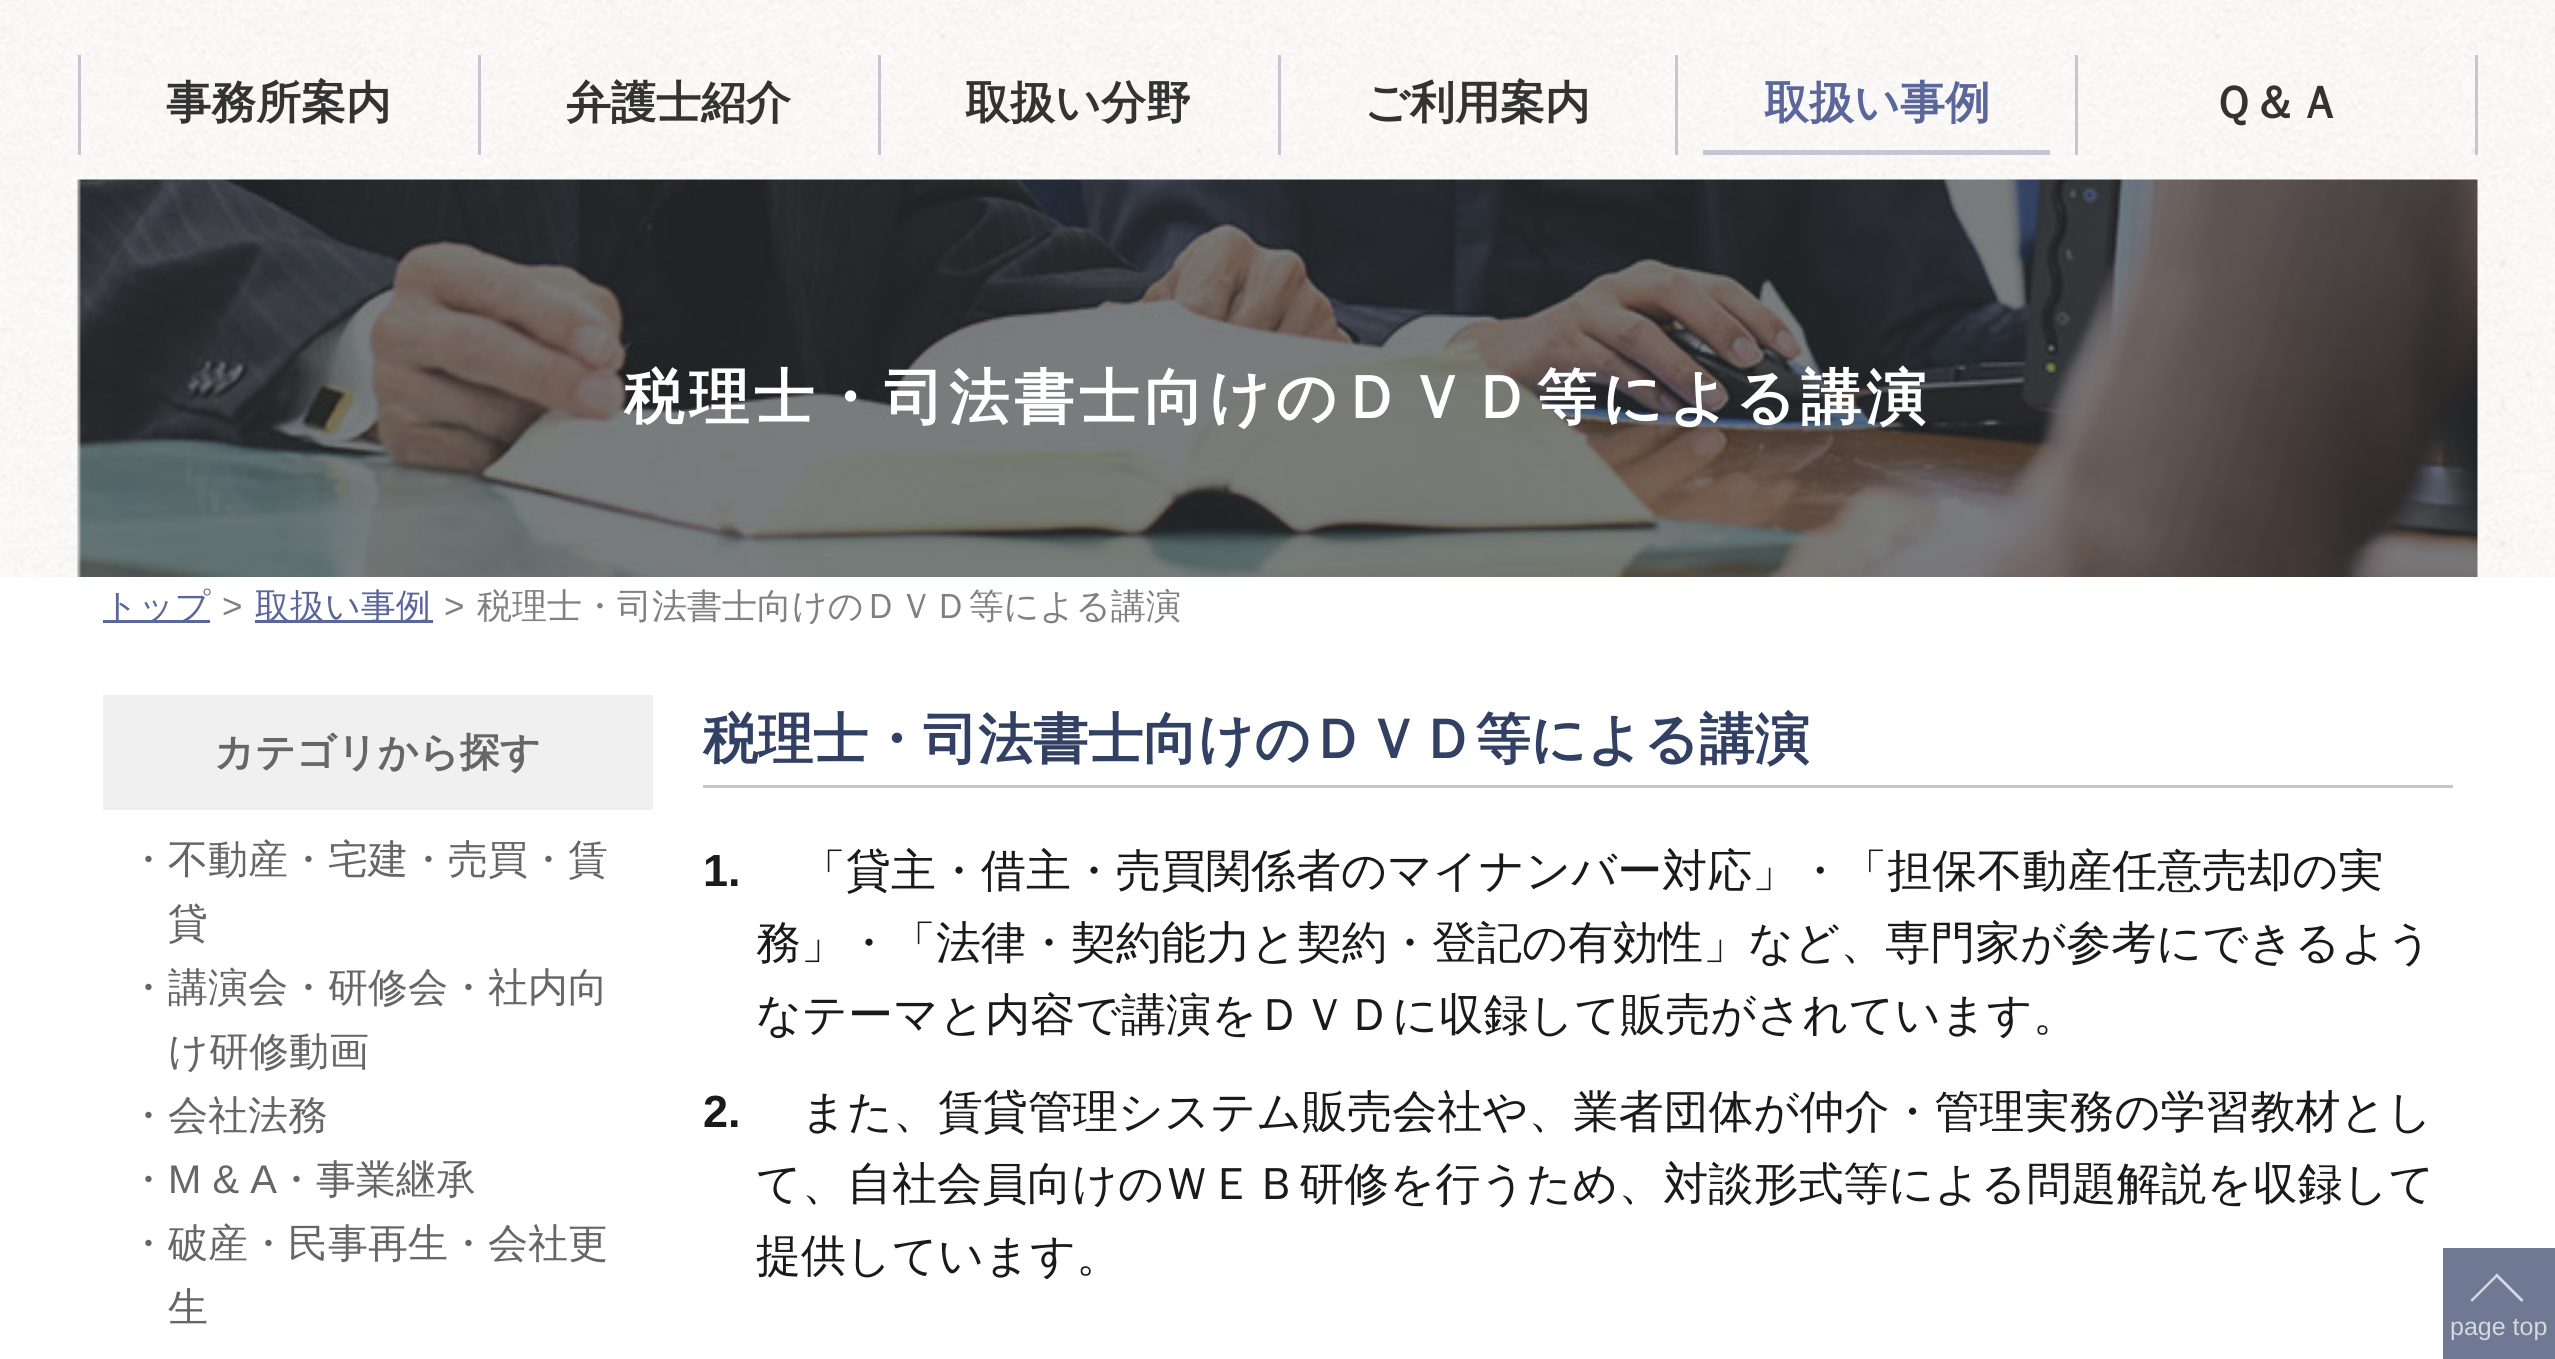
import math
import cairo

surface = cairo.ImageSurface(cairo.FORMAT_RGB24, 2555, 1359)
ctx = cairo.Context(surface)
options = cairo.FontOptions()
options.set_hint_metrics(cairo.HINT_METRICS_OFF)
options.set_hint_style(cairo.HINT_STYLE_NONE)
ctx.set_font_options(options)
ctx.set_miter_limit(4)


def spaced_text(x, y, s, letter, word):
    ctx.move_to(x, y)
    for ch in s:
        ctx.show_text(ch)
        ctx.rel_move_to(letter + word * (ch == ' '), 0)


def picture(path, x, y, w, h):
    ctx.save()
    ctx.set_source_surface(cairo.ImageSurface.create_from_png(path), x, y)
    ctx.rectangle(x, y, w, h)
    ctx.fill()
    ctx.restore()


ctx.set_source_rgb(1, 1, 1)
ctx.paint()
picture("img1.png", 0, 0, 2555, 577)
ctx.set_source_rgb(0.769, 0.78, 0.82)
ctx.rectangle(78, 55, 3, 100)
ctx.fill()
ctx.select_font_face("WenQuanYi Zen Hei", cairo.FONT_SLANT_NORMAL, cairo.FONT_WEIGHT_BOLD)
ctx.set_font_size(45)
ctx.set_source_rgb(0.2, 0.2, 0.2)
ctx.move_to(166, 118)
ctx.show_text("事務所案内")
ctx.set_source_rgb(0.769, 0.78, 0.82)
ctx.rectangle(478, 55, 3, 100)
ctx.fill()
ctx.set_source_rgb(0.2, 0.2, 0.2)
ctx.move_to(566, 118)
ctx.show_text("弁護士紹介")
ctx.set_source_rgb(0.769, 0.78, 0.82)
ctx.rectangle(878, 55, 3, 100)
ctx.fill()
ctx.set_source_rgb(0.2, 0.2, 0.2)
ctx.move_to(965, 118)
ctx.show_text("取扱い分野")
ctx.set_source_rgb(0.769, 0.78, 0.82)
ctx.rectangle(1278, 55, 3, 100)
ctx.fill()
ctx.set_source_rgb(0.2, 0.2, 0.2)
ctx.move_to(1364, 118)
ctx.show_text("ご利用案内")
ctx.set_source_rgb(0.769, 0.78, 0.82)
ctx.rectangle(1675, 55, 3, 100)
ctx.fill()
ctx.rectangle(1703, 150, 347, 5)
ctx.fill()
ctx.set_source_rgb(0.357, 0.4, 0.608)
ctx.move_to(1764, 118)
ctx.show_text("取扱い事例")
ctx.set_source_rgb(0.769, 0.78, 0.82)
ctx.rectangle(2475, 55, 3, 100)
ctx.fill()
ctx.rectangle(2075, 55, 3, 100)
ctx.fill()
ctx.set_source_rgb(0.2, 0.2, 0.2)
ctx.move_to(2211, 118)
ctx.show_text("Ｑ＆Ａ")
picture("img2.png", 77, 179, 2401, 398)
ctx.set_font_size(60)
ctx.set_source_rgb(1, 1, 1)
spaced_text(624, 418, "税理士・司法書士向けのＤＶＤ等による講演", 5, 0)
ctx.set_source_rgb(0.357, 0.4, 0.608)
ctx.rectangle(103, 620, 107, 3)
ctx.fill()
ctx.select_font_face("WenQuanYi Zen Hei Medium")
ctx.set_font_size(35)
ctx.move_to(103, 618)
ctx.show_text("トップ")
ctx.select_font_face("Liberation Sans")
ctx.set_source_rgb(0.502, 0.502, 0.502)
ctx.move_to(222, 618)
ctx.show_text(">")
ctx.set_source_rgb(0.357, 0.4, 0.608)
ctx.rectangle(255, 620, 178, 3)
ctx.fill()
ctx.select_font_face("WenQuanYi Zen Hei Medium")
ctx.move_to(255, 618)
ctx.show_text("取扱い事例")
ctx.select_font_face("Liberation Sans")
ctx.set_source_rgb(0.502, 0.502, 0.502)
ctx.move_to(444, 618)
ctx.show_text(">")
ctx.select_font_face("WenQuanYi Zen Hei Medium")
ctx.move_to(477, 618)
ctx.show_text("税理士・司法書士向けのＤＶＤ等による講演")
ctx.set_source_rgb(0.941, 0.941, 0.941)
ctx.rectangle(103, 695, 550, 115)
ctx.fill()
ctx.select_font_face("WenQuanYi Zen Hei", cairo.FONT_SLANT_NORMAL, cairo.FONT_WEIGHT_BOLD)
ctx.set_font_size(40)
ctx.set_source_rgb(0.4, 0.4, 0.4)
ctx.move_to(214, 766)
ctx.show_text("カテゴリから探す")
ctx.select_font_face("WenQuanYi Zen Hei Medium")
ctx.move_to(128, 873)
ctx.show_text("・")
ctx.move_to(168, 873)
ctx.show_text("不動産・宅建・売買・賃")
ctx.move_to(168, 937)
ctx.show_text("貸")
ctx.move_to(128, 1001)
ctx.show_text("・")
ctx.move_to(168, 1001)
ctx.show_text("講演会・研修会・社内向")
ctx.move_to(168, 1065)
ctx.show_text("け研修動画")
ctx.move_to(128, 1129)
ctx.show_text("・")
ctx.move_to(168, 1129)
ctx.show_text("会社法務")
ctx.move_to(128, 1193)
ctx.show_text("・")
ctx.select_font_face("Liberation Sans")
ctx.move_to(168, 1193)
ctx.show_text("M & A")
ctx.select_font_face("WenQuanYi Zen Hei Medium")
ctx.move_to(276, 1193)
ctx.show_text("・事業継承")
ctx.move_to(128, 1257)
ctx.show_text("・")
ctx.move_to(168, 1257)
ctx.show_text("破産・民事再生・会社更")
ctx.move_to(168, 1321)
ctx.show_text("生")
ctx.set_source_rgb(0.769, 0.78, 0.82)
ctx.rectangle(703, 785, 1750, 3)
ctx.fill()
ctx.select_font_face("WenQuanYi Zen Hei", cairo.FONT_SLANT_NORMAL, cairo.FONT_WEIGHT_BOLD)
ctx.set_font_size(55)
ctx.set_source_rgb(0.196, 0.251, 0.392)
ctx.move_to(703, 758)
ctx.show_text("税理士・司法書士向けのＤＶＤ等による講演")
ctx.select_font_face("Liberation Sans", cairo.FONT_SLANT_NORMAL, cairo.FONT_WEIGHT_BOLD)
ctx.set_font_size(45)
ctx.set_source_rgb(0.102, 0.102, 0.102)
ctx.move_to(703, 886)
ctx.show_text("1.")
ctx.select_font_face("WenQuanYi Zen Hei Medium")
ctx.move_to(801, 886)
ctx.show_text("「貸主・借主・売買関係者のマイナンバー対応」・「担保不動産任意売却の実")
ctx.move_to(756, 958)
ctx.show_text("務」・「法律・契約能力と契約・登記の有効性」など、専門家が参考にできるよう")
ctx.move_to(756, 1030)
ctx.show_text("なテーマと内容で講演をＤＶＤに収録して販売がされています。")
ctx.select_font_face("Liberation Sans", cairo.FONT_SLANT_NORMAL, cairo.FONT_WEIGHT_BOLD)
ctx.move_to(703, 1127)
ctx.show_text("2.")
ctx.select_font_face("WenQuanYi Zen Hei Medium")
ctx.move_to(801, 1127)
ctx.show_text("また、賃貸管理システム販売会社や、業者団体が仲介・管理実務の学習教材とし")
ctx.move_to(756, 1199)
ctx.show_text("て、自社会員向けのＷＥＢ研修を行うため、対談形式等による問題解説を収録して")
ctx.move_to(756, 1271)
ctx.show_text("提供しています。")
ctx.set_source_rgb(0.439, 0.475, 0.576)
ctx.rectangle(2443, 1248, 112, 111)
ctx.fill()
ctx.set_source_rgb(0.839, 0.847, 0.875)
ctx.new_path()
ctx.move_to(2470.5, 1300)
ctx.line_to(2497, 1273.5)
ctx.line_to(2498.5, 1275.5)
ctx.line_to(2472, 1302)
ctx.close_path()
ctx.fill()
ctx.new_path()
ctx.move_to(2495, 1275.5)
ctx.line_to(2497, 1273.5)
ctx.line_to(2523.5, 1300)
ctx.line_to(2521.5, 1302)
ctx.close_path()
ctx.fill()
ctx.select_font_face("Liberation Sans")
ctx.set_font_size(25)
ctx.move_to(2450, 1335)
ctx.show_text("page top")
surface.write_to_png("page.png")
